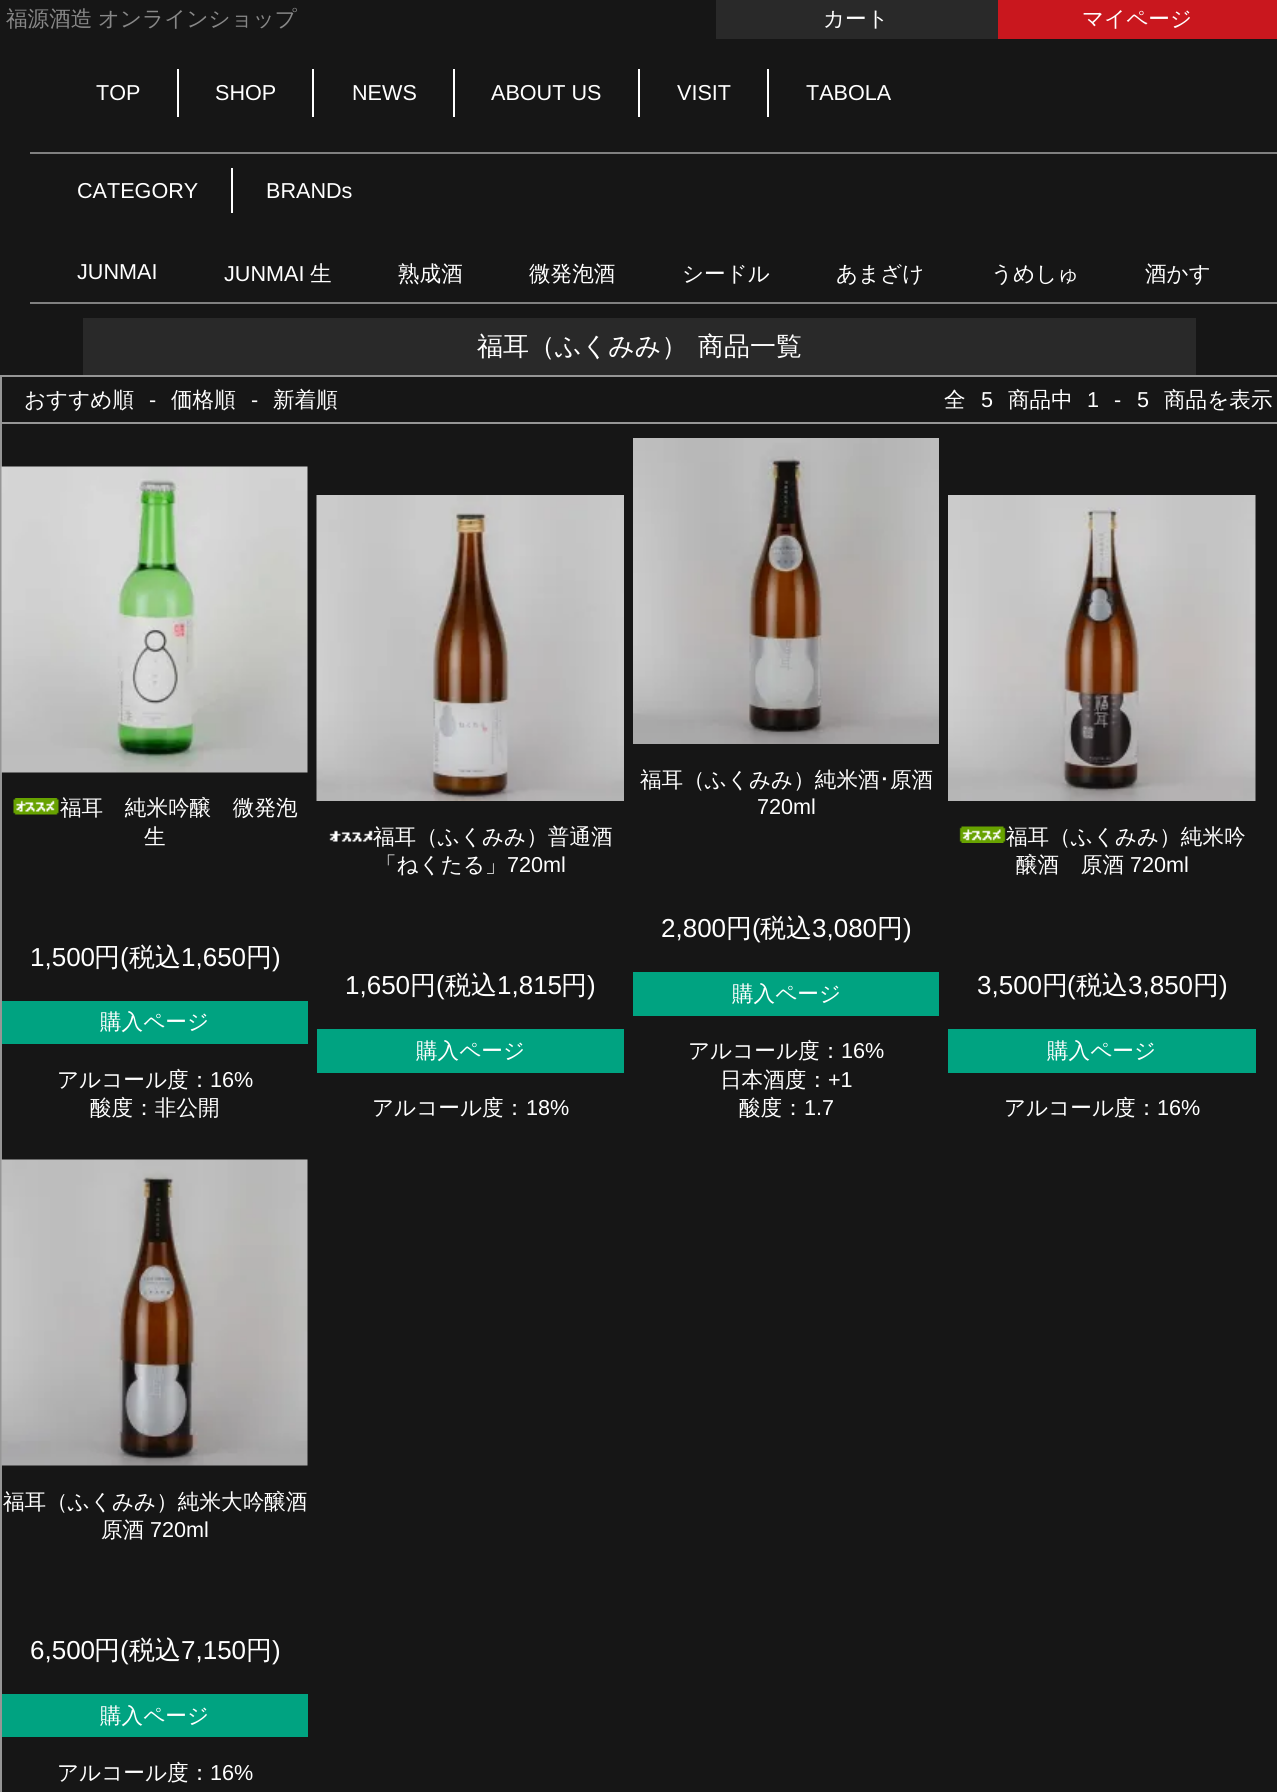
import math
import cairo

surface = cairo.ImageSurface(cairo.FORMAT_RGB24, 1277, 1792)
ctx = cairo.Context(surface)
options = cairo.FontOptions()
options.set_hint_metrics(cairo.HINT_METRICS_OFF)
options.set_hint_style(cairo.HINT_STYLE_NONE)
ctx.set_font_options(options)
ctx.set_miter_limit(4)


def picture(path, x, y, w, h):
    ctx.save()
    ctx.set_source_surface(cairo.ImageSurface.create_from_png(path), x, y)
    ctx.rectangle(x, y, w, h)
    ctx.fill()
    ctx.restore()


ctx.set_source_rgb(0.086, 0.086, 0.086)
ctx.paint()
ctx.select_font_face("WenQuanYi Zen Hei Medium")
ctx.set_font_size(21.6)
ctx.set_source_rgb(0.533, 0.533, 0.533)
ctx.move_to(6, 26)
ctx.show_text("福源酒造")
ctx.move_to(98, 26)
ctx.show_text("オンラインショップ")
ctx.set_source_rgb(0.161, 0.161, 0.161)
ctx.rectangle(716, 0, 282, 39)
ctx.fill()
ctx.set_source_rgb(1, 1, 1)
ctx.move_to(823, 26)
ctx.show_text("カート")
ctx.set_source_rgb(0.788, 0.09, 0.118)
ctx.rectangle(998, 0, 279, 39)
ctx.fill()
ctx.set_source_rgb(1, 1, 1)
ctx.move_to(1082, 26)
ctx.show_text("マイページ")
ctx.rectangle(177, 69, 2, 48)
ctx.fill()
ctx.select_font_face("Liberation Sans")
ctx.move_to(96, 100)
ctx.show_text("TOP")
ctx.rectangle(312, 69, 2, 48)
ctx.fill()
ctx.move_to(215, 100)
ctx.show_text("SHOP")
ctx.rectangle(453, 69, 2, 48)
ctx.fill()
ctx.move_to(352, 100)
ctx.show_text("NEWS")
ctx.rectangle(638, 69, 2, 48)
ctx.fill()
ctx.move_to(491, 100)
ctx.show_text("ABOUT US")
ctx.rectangle(767, 69, 2, 48)
ctx.fill()
ctx.move_to(677, 100)
ctx.show_text("VISIT")
ctx.move_to(806, 100)
ctx.show_text("TABOLA")
ctx.set_source_rgb(0.502, 0.502, 0.502)
ctx.rectangle(30, 152, 1247, 2)
ctx.fill()
ctx.set_source_rgb(1, 1, 1)
ctx.rectangle(231, 168, 2, 45)
ctx.fill()
ctx.move_to(77, 198)
ctx.show_text("CATEGORY")
ctx.move_to(266, 198)
ctx.show_text("BRANDs")
ctx.set_source_rgb(0.502, 0.502, 0.502)
ctx.rectangle(30, 302, 1247, 2)
ctx.fill()
ctx.set_source_rgb(1, 1, 1)
ctx.move_to(77, 279)
ctx.show_text("JUNMAI")
ctx.move_to(224, 281)
ctx.show_text("JUNMAI")
ctx.select_font_face("WenQuanYi Zen Hei Medium")
ctx.move_to(310, 281)
ctx.show_text("生")
ctx.move_to(398, 281)
ctx.show_text("熟成酒")
ctx.move_to(529, 281)
ctx.show_text("微発泡酒")
ctx.move_to(682, 281)
ctx.show_text("シードル")
ctx.move_to(836, 281)
ctx.show_text("あまざけ")
ctx.move_to(991, 281)
ctx.show_text("うめしゅ")
ctx.move_to(1145, 281)
ctx.show_text("酒かす")
ctx.set_source_rgb(0.161, 0.161, 0.161)
ctx.rectangle(83, 318, 1113, 57)
ctx.fill()
ctx.set_font_size(26)
ctx.set_source_rgb(1, 1, 1)
ctx.move_to(477, 355)
ctx.show_text("福耳（ふくみみ）")
ctx.move_to(698, 355)
ctx.show_text("商品一覧")
ctx.rectangle(1, 376, 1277, 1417)
ctx.set_source_rgb(0.588, 0.588, 0.588)
ctx.stroke()
ctx.rectangle(2, 422, 1275, 2)
ctx.fill()
ctx.set_font_size(21.6)
ctx.set_source_rgb(1, 1, 1)
ctx.move_to(24, 407)
ctx.show_text("おすすめ順")
ctx.select_font_face("Liberation Sans")
ctx.move_to(149, 407)
ctx.show_text("-")
ctx.select_font_face("WenQuanYi Zen Hei Medium")
ctx.move_to(171, 407)
ctx.show_text("価格順")
ctx.select_font_face("Liberation Sans")
ctx.move_to(251, 407)
ctx.show_text("-")
ctx.select_font_face("WenQuanYi Zen Hei Medium")
ctx.move_to(273, 407)
ctx.show_text("新着順")
ctx.move_to(944, 407)
ctx.show_text("全")
ctx.select_font_face("Liberation Sans")
ctx.move_to(981, 407)
ctx.show_text("5")
ctx.select_font_face("WenQuanYi Zen Hei Medium")
ctx.move_to(1008, 407)
ctx.show_text("商品中")
ctx.select_font_face("Liberation Sans")
ctx.move_to(1087, 407)
ctx.show_text("1")
ctx.move_to(1114, 407)
ctx.show_text("-")
ctx.move_to(1137, 407)
ctx.show_text("5")
ctx.select_font_face("WenQuanYi Zen Hei Medium")
ctx.move_to(1164, 407)
ctx.show_text("商品を表示")
picture("img1.png", 1, 466, 307, 307)
picture("img2.png", 13, 798, 46, 17)
ctx.move_to(60, 815)
ctx.show_text("福耳　純米吟醸　微発泡")
ctx.move_to(144, 844)
ctx.show_text("生")
ctx.select_font_face("Liberation Sans")
ctx.set_font_size(26)
ctx.move_to(30, 966)
ctx.show_text("1,500")
ctx.select_font_face("WenQuanYi Zen Hei Medium")
ctx.move_to(94, 966)
ctx.show_text("円")
ctx.select_font_face("Liberation Sans")
ctx.move_to(120, 966)
ctx.show_text("(")
ctx.select_font_face("WenQuanYi Zen Hei Medium")
ctx.move_to(129, 966)
ctx.show_text("税込")
ctx.select_font_face("Liberation Sans")
ctx.move_to(181, 966)
ctx.show_text("1,650")
ctx.select_font_face("WenQuanYi Zen Hei Medium")
ctx.move_to(246, 966)
ctx.show_text("円")
ctx.select_font_face("Liberation Sans")
ctx.move_to(272, 966)
ctx.show_text(")")
ctx.set_source_rgb(0, 0.639, 0.506)
ctx.rectangle(2, 1001, 306, 43)
ctx.fill()
ctx.select_font_face("WenQuanYi Zen Hei Medium")
ctx.set_font_size(21.6)
ctx.set_source_rgb(1, 1, 1)
ctx.move_to(100, 1029)
ctx.show_text("購入ページ")
ctx.move_to(57, 1087)
ctx.show_text("アルコール度：")
ctx.select_font_face("Liberation Sans")
ctx.move_to(210, 1087)
ctx.show_text("16%")
ctx.select_font_face("WenQuanYi Zen Hei Medium")
ctx.move_to(90, 1115)
ctx.show_text("酸度：非公開")
picture("img3.png", 316, 495, 308, 306)
picture("img4.png", 329, 830, 44, 12)
ctx.move_to(373, 844)
ctx.show_text("福耳（ふくみみ）普通酒")
ctx.move_to(375, 872)
ctx.show_text("「ねくたる」")
ctx.select_font_face("Liberation Sans")
ctx.move_to(507, 872)
ctx.show_text("720ml")
ctx.set_font_size(26)
ctx.move_to(345, 994)
ctx.show_text("1,650")
ctx.select_font_face("WenQuanYi Zen Hei Medium")
ctx.move_to(410, 994)
ctx.show_text("円")
ctx.select_font_face("Liberation Sans")
ctx.move_to(436, 994)
ctx.show_text("(")
ctx.select_font_face("WenQuanYi Zen Hei Medium")
ctx.move_to(445, 994)
ctx.show_text("税込")
ctx.select_font_face("Liberation Sans")
ctx.move_to(497, 994)
ctx.show_text("1,815")
ctx.select_font_face("WenQuanYi Zen Hei Medium")
ctx.move_to(561, 994)
ctx.show_text("円")
ctx.select_font_face("Liberation Sans")
ctx.move_to(587, 994)
ctx.show_text(")")
ctx.set_source_rgb(0, 0.639, 0.506)
ctx.rectangle(317, 1029, 307, 44)
ctx.fill()
ctx.select_font_face("WenQuanYi Zen Hei Medium")
ctx.set_font_size(21.6)
ctx.set_source_rgb(1, 1, 1)
ctx.move_to(416, 1058)
ctx.show_text("購入ページ")
ctx.move_to(372, 1115)
ctx.show_text("アルコール度：")
ctx.select_font_face("Liberation Sans")
ctx.move_to(526, 1115)
ctx.show_text("18%")
picture("img5.png", 633, 438, 306, 306)
ctx.select_font_face("WenQuanYi Zen Hei Medium")
ctx.move_to(640, 787)
ctx.show_text("福耳（ふくみみ）純米酒")
ctx.select_font_face("IPAPGothic")
ctx.move_to(879, 787)
ctx.show_text("･")
ctx.select_font_face("WenQuanYi Zen Hei Medium")
ctx.move_to(890, 787)
ctx.show_text("原酒")
ctx.select_font_face("Liberation Sans")
ctx.move_to(757, 814)
ctx.show_text("720ml")
ctx.set_font_size(26)
ctx.move_to(661, 937)
ctx.show_text("2,800")
ctx.select_font_face("WenQuanYi Zen Hei Medium")
ctx.move_to(726, 937)
ctx.show_text("円")
ctx.select_font_face("Liberation Sans")
ctx.move_to(752, 937)
ctx.show_text("(")
ctx.select_font_face("WenQuanYi Zen Hei Medium")
ctx.move_to(760, 937)
ctx.show_text("税込")
ctx.select_font_face("Liberation Sans")
ctx.move_to(812, 937)
ctx.show_text("3,080")
ctx.select_font_face("WenQuanYi Zen Hei Medium")
ctx.move_to(877, 937)
ctx.show_text("円")
ctx.select_font_face("Liberation Sans")
ctx.move_to(903, 937)
ctx.show_text(")")
ctx.set_source_rgb(0, 0.639, 0.506)
ctx.rectangle(633, 972, 306, 44)
ctx.fill()
ctx.select_font_face("WenQuanYi Zen Hei Medium")
ctx.set_font_size(21.6)
ctx.set_source_rgb(1, 1, 1)
ctx.move_to(732, 1001)
ctx.show_text("購入ページ")
ctx.move_to(688, 1058)
ctx.show_text("アルコール度：")
ctx.select_font_face("Liberation Sans")
ctx.move_to(841, 1058)
ctx.show_text("16%")
ctx.select_font_face("WenQuanYi Zen Hei Medium")
ctx.move_to(720, 1087)
ctx.show_text("日本酒度：")
ctx.select_font_face("Liberation Sans")
ctx.move_to(828, 1087)
ctx.show_text("+1")
ctx.select_font_face("WenQuanYi Zen Hei Medium")
ctx.move_to(739, 1115)
ctx.show_text("酸度：")
ctx.select_font_face("Liberation Sans")
ctx.move_to(804, 1115)
ctx.show_text("1.7")
picture("img6.png", 948, 495, 308, 306)
picture("img7.png", 959, 826, 47, 17)
ctx.select_font_face("WenQuanYi Zen Hei Medium")
ctx.move_to(1006, 844)
ctx.show_text("福耳（ふくみみ）純米吟")
ctx.move_to(1016, 872)
ctx.show_text("醸酒　原酒")
ctx.select_font_face("Liberation Sans")
ctx.move_to(1130, 872)
ctx.show_text("720ml")
ctx.set_font_size(26)
ctx.move_to(977, 994)
ctx.show_text("3,500")
ctx.select_font_face("WenQuanYi Zen Hei Medium")
ctx.move_to(1042, 994)
ctx.show_text("円")
ctx.select_font_face("Liberation Sans")
ctx.move_to(1067, 994)
ctx.show_text("(")
ctx.select_font_face("WenQuanYi Zen Hei Medium")
ctx.move_to(1076, 994)
ctx.show_text("税込")
ctx.select_font_face("Liberation Sans")
ctx.move_to(1128, 994)
ctx.show_text("3,850")
ctx.select_font_face("WenQuanYi Zen Hei Medium")
ctx.move_to(1193, 994)
ctx.show_text("円")
ctx.select_font_face("Liberation Sans")
ctx.move_to(1219, 994)
ctx.show_text(")")
ctx.set_source_rgb(0, 0.639, 0.506)
ctx.rectangle(948, 1029, 308, 44)
ctx.fill()
ctx.select_font_face("WenQuanYi Zen Hei Medium")
ctx.set_font_size(21.6)
ctx.set_source_rgb(1, 1, 1)
ctx.move_to(1047, 1058)
ctx.show_text("購入ページ")
ctx.move_to(1004, 1115)
ctx.show_text("アルコール度：")
ctx.select_font_face("Liberation Sans")
ctx.move_to(1157, 1115)
ctx.show_text("16%")
picture("img8.png", 1, 1159, 307, 307)
ctx.select_font_face("WenQuanYi Zen Hei Medium")
ctx.move_to(3, 1509)
ctx.show_text("福耳（ふくみみ）純米大吟醸酒")
ctx.move_to(101, 1537)
ctx.show_text("原酒")
ctx.select_font_face("Liberation Sans")
ctx.move_to(150, 1537)
ctx.show_text("720ml")
ctx.set_font_size(26)
ctx.move_to(30, 1659)
ctx.show_text("6,500")
ctx.select_font_face("WenQuanYi Zen Hei Medium")
ctx.move_to(94, 1659)
ctx.show_text("円")
ctx.select_font_face("Liberation Sans")
ctx.move_to(120, 1659)
ctx.show_text("(")
ctx.select_font_face("WenQuanYi Zen Hei Medium")
ctx.move_to(129, 1659)
ctx.show_text("税込")
ctx.select_font_face("Liberation Sans")
ctx.move_to(181, 1659)
ctx.show_text("7,150")
ctx.select_font_face("WenQuanYi Zen Hei Medium")
ctx.move_to(246, 1659)
ctx.show_text("円")
ctx.select_font_face("Liberation Sans")
ctx.move_to(272, 1659)
ctx.show_text(")")
ctx.set_source_rgb(0, 0.639, 0.506)
ctx.rectangle(2, 1694, 306, 43)
ctx.fill()
ctx.select_font_face("WenQuanYi Zen Hei Medium")
ctx.set_font_size(21.6)
ctx.set_source_rgb(1, 1, 1)
ctx.move_to(100, 1723)
ctx.show_text("購入ページ")
ctx.move_to(57, 1780)
ctx.show_text("アルコール度：")
ctx.select_font_face("Liberation Sans")
ctx.move_to(210, 1780)
ctx.show_text("16%")
surface.write_to_png("page.png")
